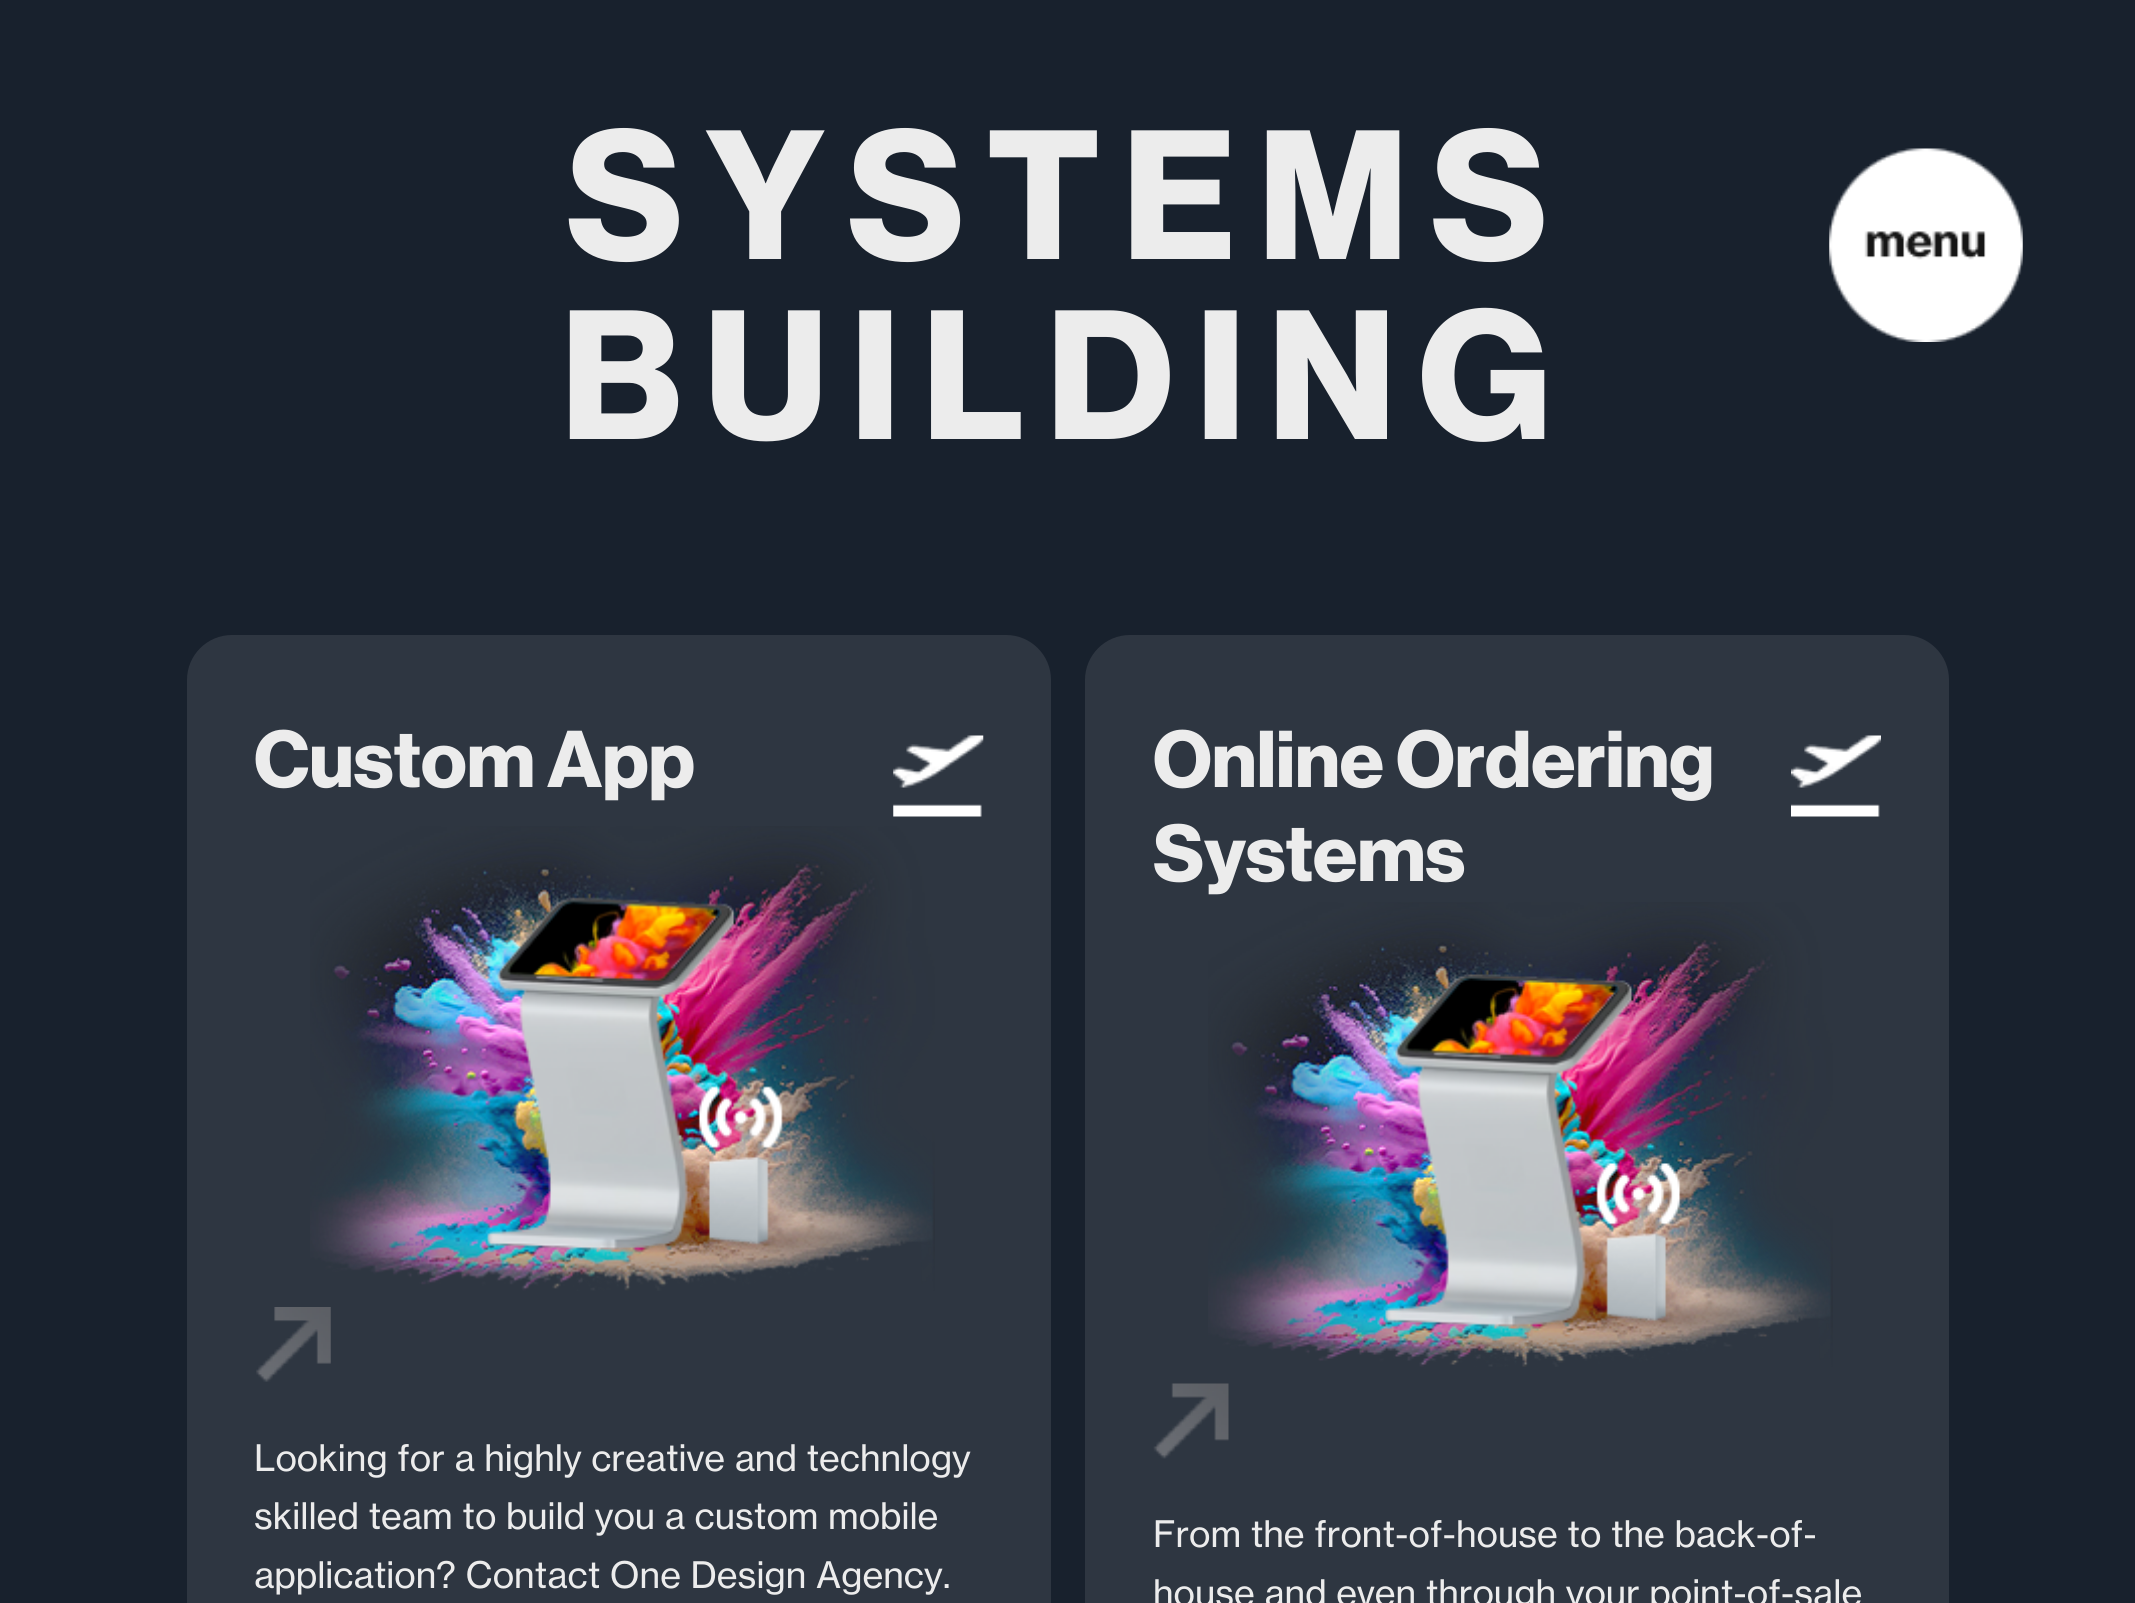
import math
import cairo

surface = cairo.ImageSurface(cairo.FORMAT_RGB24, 2135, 1603)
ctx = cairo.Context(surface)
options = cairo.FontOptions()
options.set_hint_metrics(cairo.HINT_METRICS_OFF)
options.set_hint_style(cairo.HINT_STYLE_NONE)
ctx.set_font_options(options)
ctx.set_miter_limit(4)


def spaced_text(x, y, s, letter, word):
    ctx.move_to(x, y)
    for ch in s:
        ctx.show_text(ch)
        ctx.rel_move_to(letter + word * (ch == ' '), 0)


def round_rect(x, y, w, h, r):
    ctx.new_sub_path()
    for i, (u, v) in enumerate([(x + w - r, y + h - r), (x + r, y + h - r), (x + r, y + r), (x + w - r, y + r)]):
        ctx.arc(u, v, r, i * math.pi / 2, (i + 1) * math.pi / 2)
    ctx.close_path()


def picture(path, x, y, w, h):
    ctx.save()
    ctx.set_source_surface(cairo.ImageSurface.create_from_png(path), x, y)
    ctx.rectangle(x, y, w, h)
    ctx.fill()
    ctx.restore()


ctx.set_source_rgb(0.094, 0.129, 0.176)
ctx.paint()
ctx.select_font_face("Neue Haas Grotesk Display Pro", cairo.FONT_SLANT_NORMAL, cairo.FONT_WEIGHT_BOLD)
ctx.set_font_size(180)
ctx.set_source_rgb(0.925, 0.925, 0.925)
spaced_text(566, 259, "SYSTEMS", 22.5, 0)
spaced_text(561, 439, "BUILDING", 22.5, 0)
ctx.set_source_rgb(0.18, 0.212, 0.255)
round_rect(187, 635, 864, 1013, 45)
ctx.fill()
ctx.set_font_size(78.75)
ctx.set_source_rgb(0.925, 0.925, 0.925)
ctx.move_to(254, 787)
ctx.show_text("Custom App")
picture("img1.png", 893, 735, 91, 82)
picture("img2.png", 310, 826, 625, 465)
picture("img3.png", 256, 1307, 75, 75)
ctx.select_font_face("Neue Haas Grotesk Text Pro")
ctx.set_font_size(36)
ctx.move_to(254, 1471)
ctx.show_text("Looking for a highly creative and technlogy")
ctx.move_to(254, 1529)
ctx.show_text("skilled team to build you a custom mobile")
ctx.move_to(254, 1588)
ctx.show_text("application? Contact One Design Agency.")
ctx.set_source_rgb(0.18, 0.212, 0.255)
round_rect(1085, 635, 864, 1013, 45)
ctx.fill()
ctx.select_font_face("Neue Haas Grotesk Display Pro", cairo.FONT_SLANT_NORMAL, cairo.FONT_WEIGHT_BOLD)
ctx.set_font_size(78.75)
ctx.set_source_rgb(0.925, 0.925, 0.925)
ctx.move_to(1153, 787)
ctx.show_text("Online Ordering")
ctx.move_to(1153, 881)
ctx.show_text("Systems")
picture("img4.png", 1791, 735, 90, 82)
picture("img5.png", 1208, 902, 625, 465)
picture("img6.png", 1153, 1383, 76, 76)
ctx.select_font_face("Neue Haas Grotesk Text Pro")
ctx.set_font_size(36)
ctx.move_to(1153, 1547)
ctx.show_text("From the front-of-house to the back-of-")
ctx.move_to(1153, 1606)
ctx.show_text("house and even through your point-of-sale")
picture("img7.png", 1829, 148, 194, 194)
surface.write_to_png("page.png")
